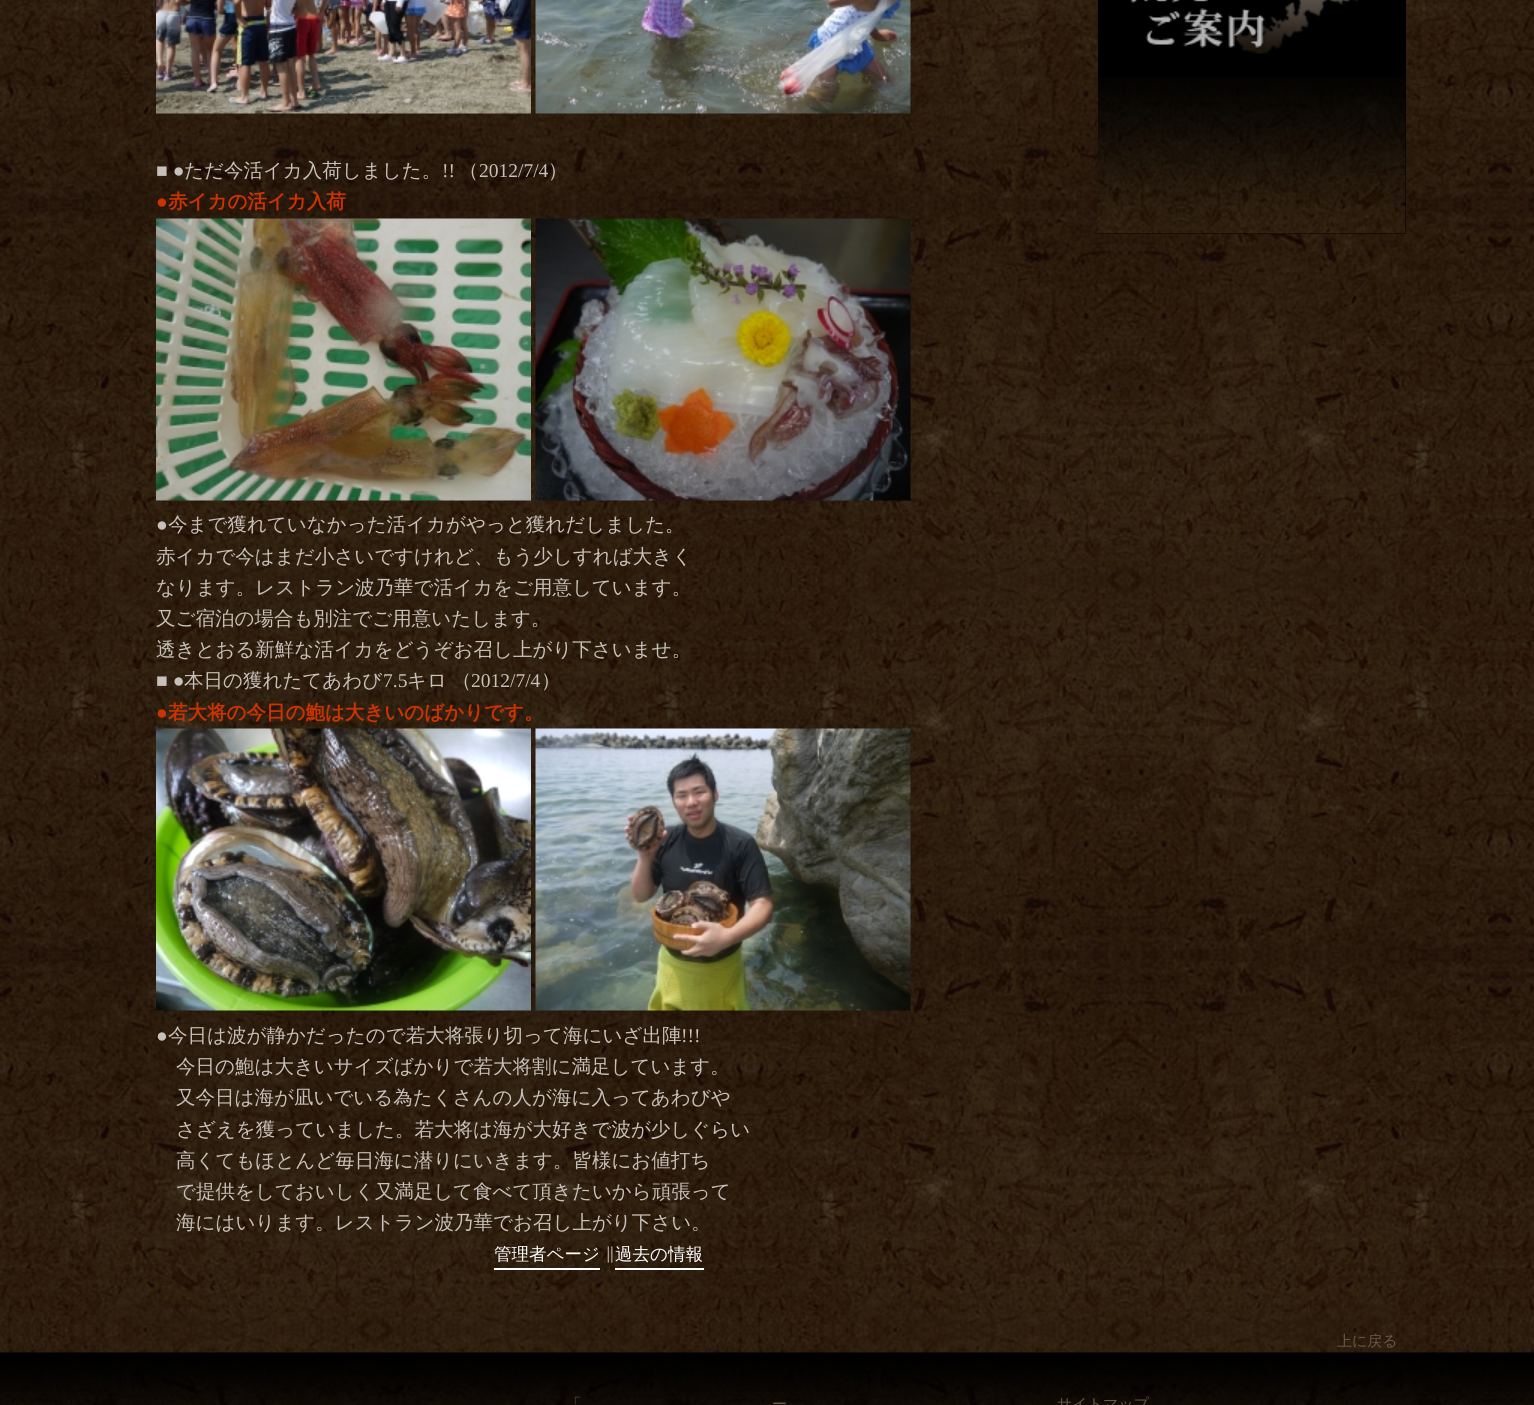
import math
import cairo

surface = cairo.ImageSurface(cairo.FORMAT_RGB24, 1534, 1405)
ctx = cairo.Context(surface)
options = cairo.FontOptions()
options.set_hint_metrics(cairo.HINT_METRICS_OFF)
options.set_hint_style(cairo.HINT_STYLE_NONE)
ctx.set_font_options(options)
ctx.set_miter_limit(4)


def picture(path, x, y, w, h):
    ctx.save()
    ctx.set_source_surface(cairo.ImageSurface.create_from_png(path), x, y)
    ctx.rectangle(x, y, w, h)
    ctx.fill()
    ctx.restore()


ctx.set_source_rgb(1, 1, 1)
ctx.paint()
picture("img1.png", 0, 0, 1534, 1353)
ctx.set_source_rgb(0, 0, 0)
ctx.rectangle(1098, 0, 308, 234)
ctx.fill()
picture("img2.png", 1098, 77, 308, 157)
picture("img3.png", 1130, 0, 229, 54)
picture("img4.png", 156, 0, 375, 114)
picture("img5.png", 535, 0, 376, 114)
ctx.select_font_face("Liberation Serif")
ctx.set_font_size(19.5)
ctx.set_source_rgb(0.78, 0.757, 0.733)
ctx.move_to(156, 177)
ctx.show_text("■ ●")
ctx.select_font_face("WenQuanYi Zen Hei Medium")
ctx.move_to(184, 177)
ctx.show_text("ただ今活イカ入荷しました。")
ctx.select_font_face("Liberation Serif")
ctx.move_to(442, 177)
ctx.show_text("!!")
ctx.select_font_face("WenQuanYi Zen Hei Medium")
ctx.move_to(459, 177)
ctx.show_text("（")
ctx.select_font_face("Liberation Serif")
ctx.move_to(479, 177)
ctx.show_text("2012/7/4")
ctx.select_font_face("WenQuanYi Zen Hei Medium")
ctx.move_to(548, 177)
ctx.show_text("）")
ctx.select_font_face("Liberation Serif", cairo.FONT_SLANT_NORMAL, cairo.FONT_WEIGHT_BOLD)
ctx.set_source_rgb(0.8, 0.2, 0)
ctx.move_to(156, 208)
ctx.show_text("●")
ctx.select_font_face("WenQuanYi Zen Hei", cairo.FONT_SLANT_NORMAL, cairo.FONT_WEIGHT_BOLD)
ctx.move_to(168, 208)
ctx.show_text("赤イカの活イカ入荷")
picture("img6.png", 156, 218, 375, 283)
picture("img7.png", 535, 218, 376, 283)
ctx.select_font_face("Liberation Serif")
ctx.set_source_rgb(0.78, 0.757, 0.733)
ctx.move_to(156, 531)
ctx.show_text("●")
ctx.select_font_face("WenQuanYi Zen Hei Medium")
ctx.move_to(168, 531)
ctx.show_text("今まで獲れていなかった活イカがやっと獲れだしました。")
ctx.move_to(156, 563)
ctx.show_text("赤イカで今はまだ小さいですけれど、もう少しすれば大きく")
ctx.move_to(156, 594)
ctx.show_text("なります。レストラン波乃華で活イカをご用意しています。")
ctx.move_to(156, 625)
ctx.show_text("又ご宿泊の場合も別注でご用意いたします。")
ctx.move_to(156, 656)
ctx.show_text("透きとおる新鮮な活イカをどうぞお召し上がり下さいませ。")
ctx.select_font_face("Liberation Serif")
ctx.move_to(156, 687)
ctx.show_text("■ ●")
ctx.select_font_face("WenQuanYi Zen Hei Medium")
ctx.move_to(184, 687)
ctx.show_text("本日の獲れたてあわび")
ctx.select_font_face("Liberation Serif")
ctx.move_to(383, 687)
ctx.show_text("7.5")
ctx.select_font_face("WenQuanYi Zen Hei Medium")
ctx.move_to(407, 687)
ctx.show_text("キロ")
ctx.move_to(452, 687)
ctx.show_text("（")
ctx.select_font_face("Liberation Serif")
ctx.move_to(471, 687)
ctx.show_text("2012/7/4")
ctx.select_font_face("WenQuanYi Zen Hei Medium")
ctx.move_to(541, 687)
ctx.show_text("）")
ctx.select_font_face("Liberation Serif", cairo.FONT_SLANT_NORMAL, cairo.FONT_WEIGHT_BOLD)
ctx.set_source_rgb(0.8, 0.2, 0)
ctx.move_to(156, 719)
ctx.show_text("●")
ctx.select_font_face("WenQuanYi Zen Hei", cairo.FONT_SLANT_NORMAL, cairo.FONT_WEIGHT_BOLD)
ctx.move_to(168, 719)
ctx.show_text("若大将の今日の鮑は大きいのばかりです。")
picture("img8.png", 156, 728, 375, 283)
picture("img9.png", 535, 728, 376, 283)
ctx.select_font_face("Liberation Serif")
ctx.set_source_rgb(0.78, 0.757, 0.733)
ctx.move_to(156, 1042)
ctx.show_text("●")
ctx.select_font_face("WenQuanYi Zen Hei Medium")
ctx.move_to(168, 1042)
ctx.show_text("今日は波が静かだったので若大将張り切って海にいざ出陣")
ctx.select_font_face("Liberation Serif")
ctx.move_to(681, 1042)
ctx.show_text("!!!")
ctx.select_font_face("WenQuanYi Zen Hei Medium")
ctx.move_to(176, 1073)
ctx.show_text("今日の鮑は大きいサイズばかりで若大将割に満足しています。")
ctx.move_to(176, 1104)
ctx.show_text("又今日は海が凪いでいる為たくさんの人が海に入ってあわびや")
ctx.move_to(176, 1136)
ctx.show_text("さざえを獲っていました。若大将は海が大好きで波が少しぐらい")
ctx.move_to(176, 1167)
ctx.show_text("高くてもほとんど毎日海に潜りにいきます。皆様にお値打ち")
ctx.move_to(176, 1198)
ctx.show_text("で提供をしておいしく又満足して食べて頂きたいから頑張って")
ctx.move_to(176, 1229)
ctx.show_text("海にはいります。レストラン波乃華でお召し上がり下さい。")
ctx.set_font_size(17.5)
ctx.set_source_rgb(1, 1, 1)
ctx.move_to(494, 1260)
ctx.show_text("管理者ページ")
ctx.rectangle(494, 1268, 106, 2)
ctx.fill()
ctx.set_source_rgb(0.78, 0.757, 0.733)
ctx.move_to(605, 1260)
ctx.show_text("∥")
ctx.set_source_rgb(1, 1, 1)
ctx.move_to(615, 1260)
ctx.show_text("過去の情報")
ctx.rectangle(615, 1268, 89, 2)
ctx.fill()
picture("img10.png", 0, 1352, 1534, 53)
ctx.set_font_size(15)
ctx.set_source_rgb(0.416, 0.349, 0.271)
ctx.move_to(1337, 1346)
ctx.show_text("上に戻る")
ctx.move_to(566, 1409)
ctx.show_text("「")
ctx.move_to(772, 1409)
ctx.show_text("ー")
ctx.move_to(1057, 1409)
ctx.show_text("サイトマップ")
surface.write_to_png("page.png")
